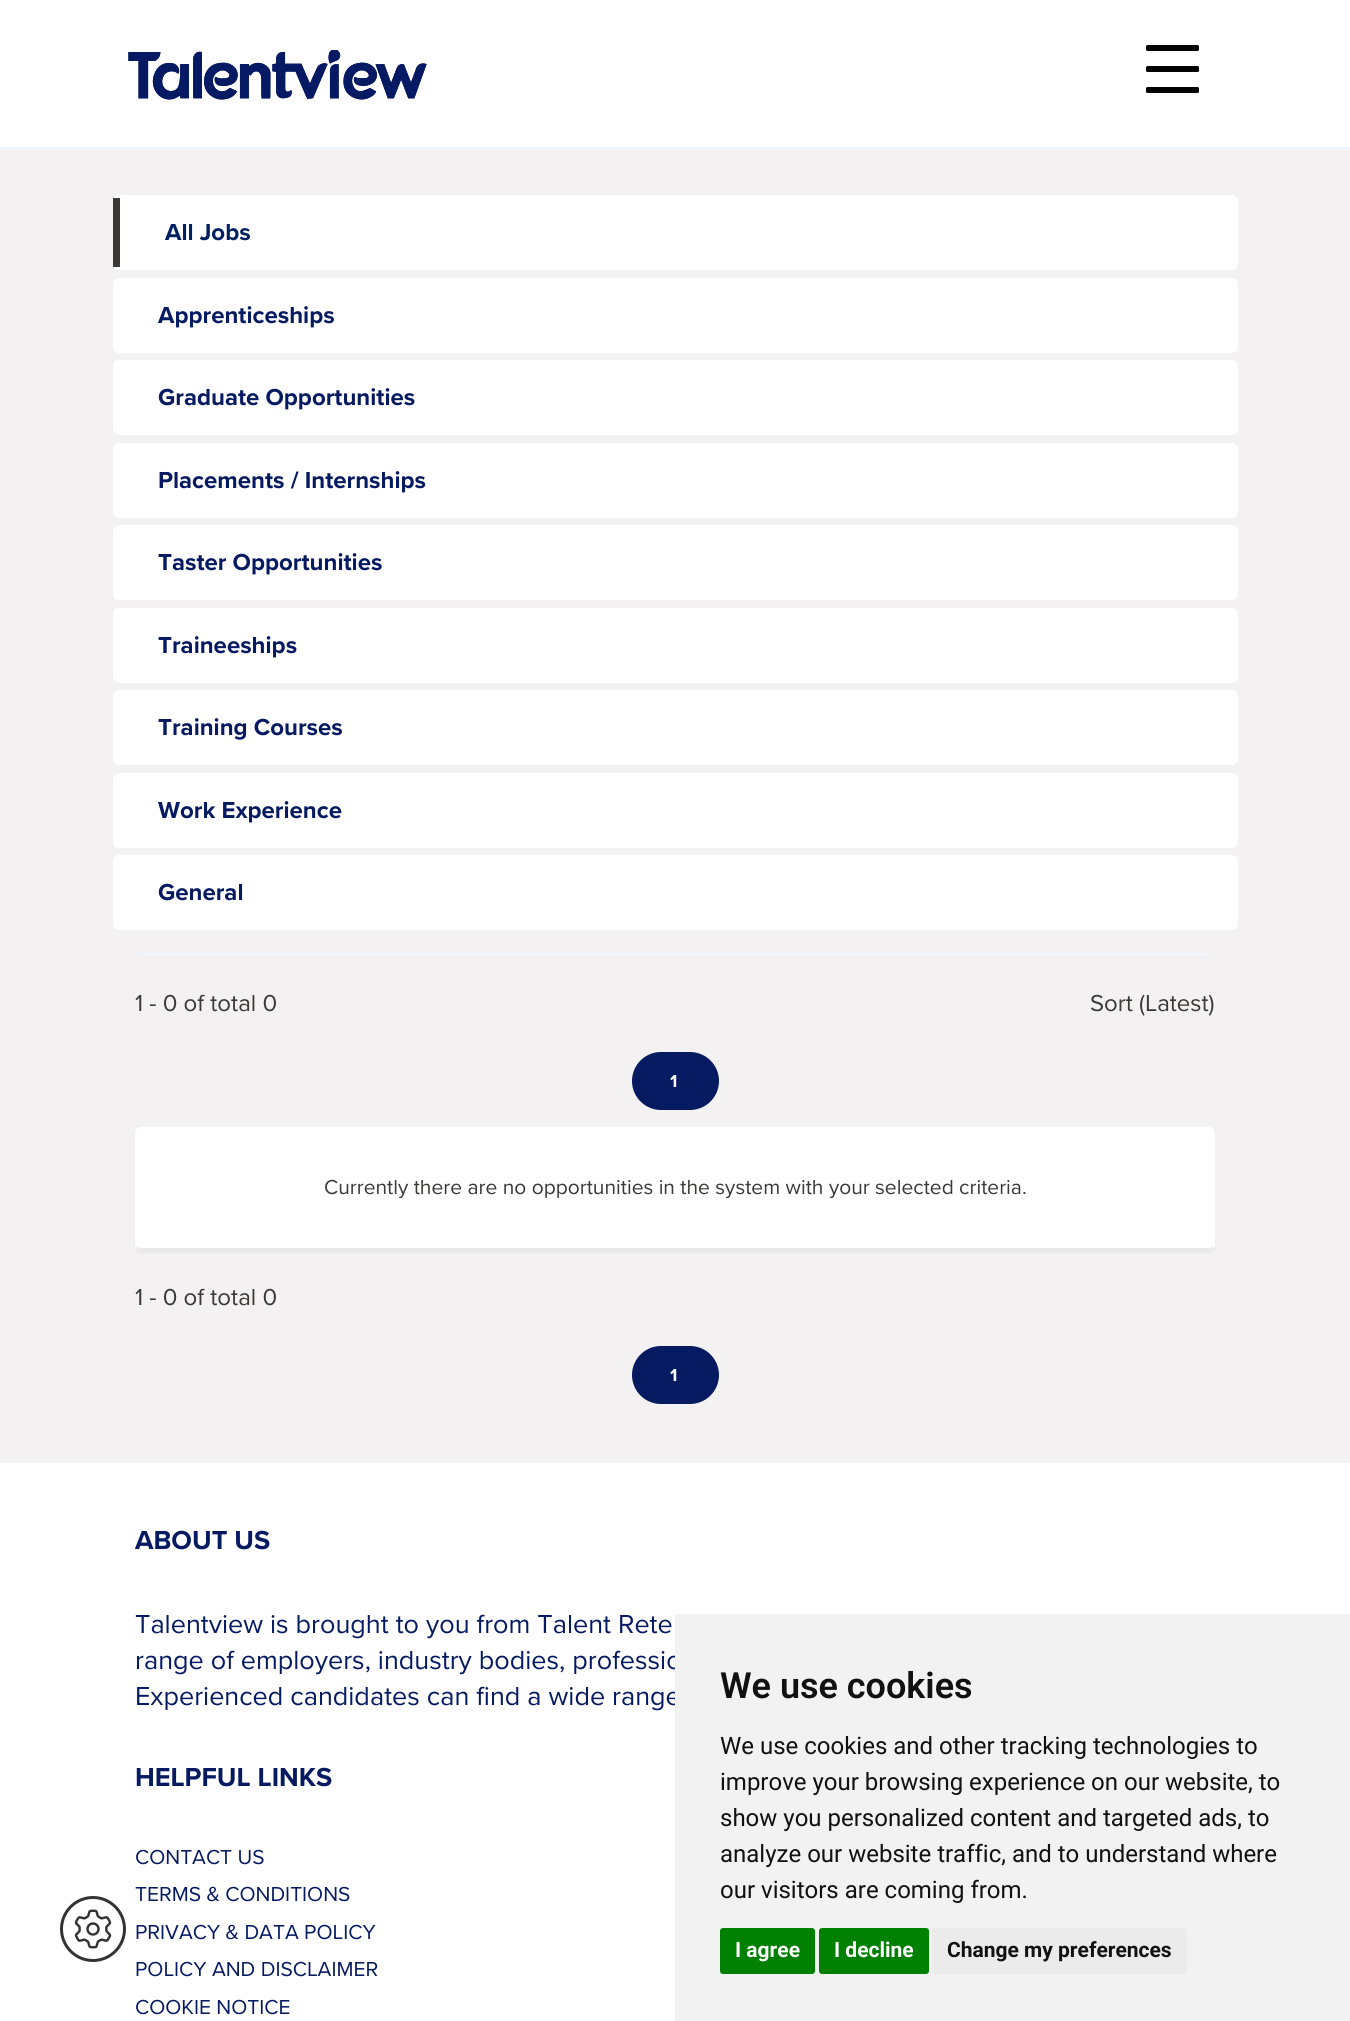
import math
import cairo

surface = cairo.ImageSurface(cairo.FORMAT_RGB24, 1350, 2021)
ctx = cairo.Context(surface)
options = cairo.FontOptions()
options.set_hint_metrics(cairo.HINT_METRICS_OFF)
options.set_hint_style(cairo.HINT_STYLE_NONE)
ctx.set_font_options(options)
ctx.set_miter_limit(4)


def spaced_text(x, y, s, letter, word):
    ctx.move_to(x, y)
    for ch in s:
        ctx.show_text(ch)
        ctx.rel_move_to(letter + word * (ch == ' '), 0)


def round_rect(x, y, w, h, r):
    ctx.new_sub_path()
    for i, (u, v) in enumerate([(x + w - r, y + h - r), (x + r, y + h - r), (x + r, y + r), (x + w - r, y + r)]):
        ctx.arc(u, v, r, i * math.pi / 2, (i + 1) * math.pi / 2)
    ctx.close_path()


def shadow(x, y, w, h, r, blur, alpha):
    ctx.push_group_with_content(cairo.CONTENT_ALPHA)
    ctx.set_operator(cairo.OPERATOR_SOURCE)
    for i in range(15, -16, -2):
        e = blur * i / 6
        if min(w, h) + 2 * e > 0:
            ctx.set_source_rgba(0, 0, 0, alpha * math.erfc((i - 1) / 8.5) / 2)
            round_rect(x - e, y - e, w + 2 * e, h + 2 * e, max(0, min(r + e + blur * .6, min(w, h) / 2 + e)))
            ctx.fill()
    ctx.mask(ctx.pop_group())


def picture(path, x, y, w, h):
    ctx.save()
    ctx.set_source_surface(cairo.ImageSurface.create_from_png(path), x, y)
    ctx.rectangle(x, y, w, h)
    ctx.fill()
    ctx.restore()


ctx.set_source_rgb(0.953, 0.945, 0.945)
ctx.paint()
ctx.set_source_rgb(1, 1, 1)
ctx.rectangle(0, 0, 1350, 147)
ctx.fill()
ctx.set_source_rgb(0.941, 0.961, 0.984)
ctx.rectangle(0, 147, 1350, 3)
ctx.fill()
picture("img1.png", 128, 50, 299, 50)
ctx.set_source_rgb(0, 0, 0)
round_rect(1146, 45, 53, 6, 1.5)
ctx.fill()
round_rect(1146, 66, 53, 6, 1.5)
ctx.fill()
round_rect(1146, 87, 53, 6, 1.5)
ctx.fill()
ctx.set_source_rgb(0.941, 0.961, 0.984)
ctx.rectangle(138, 953, 1074, 3)
ctx.fill()
ctx.set_source_rgb(1, 1, 1)
round_rect(113, 195, 1125, 75, 6)
ctx.fill()
ctx.set_source_rgb(0.231, 0.22, 0.22)
ctx.rectangle(113, 198, 7, 69)
ctx.fill()
ctx.select_font_face("Proxima Nova", cairo.FONT_SLANT_NORMAL, cairo.FONT_WEIGHT_BOLD)
ctx.set_font_size(24)
ctx.set_source_rgb(0, 0.125, 0.376)
ctx.move_to(165, 240)
ctx.show_text("All Jobs")
ctx.set_source_rgb(1, 1, 1)
round_rect(113, 278, 1125, 75, 6)
ctx.fill()
ctx.set_source_rgb(0.024, 0.102, 0.384)
ctx.move_to(158, 323)
ctx.show_text("Apprenticeships")
ctx.set_source_rgb(1, 1, 1)
round_rect(113, 360, 1125, 75, 6)
ctx.fill()
ctx.set_source_rgb(0.024, 0.102, 0.384)
ctx.move_to(158, 405)
ctx.show_text("Graduate Opportunities")
ctx.set_source_rgb(1, 1, 1)
round_rect(113, 443, 1125, 75, 6)
ctx.fill()
ctx.set_source_rgb(0.024, 0.102, 0.384)
ctx.move_to(158, 488)
ctx.show_text("Placements / Internships")
ctx.set_source_rgb(1, 1, 1)
round_rect(113, 525, 1125, 75, 6)
ctx.fill()
ctx.set_source_rgb(0.024, 0.102, 0.384)
ctx.move_to(158, 570)
ctx.show_text("Taster Opportunities")
ctx.set_source_rgb(1, 1, 1)
round_rect(113, 608, 1125, 75, 6)
ctx.fill()
ctx.set_source_rgb(0.024, 0.102, 0.384)
ctx.move_to(158, 653)
ctx.show_text("Traineeships")
ctx.set_source_rgb(1, 1, 1)
round_rect(113, 690, 1125, 75, 6)
ctx.fill()
ctx.set_source_rgb(0.024, 0.102, 0.384)
ctx.move_to(158, 735)
ctx.show_text("Training Courses")
ctx.set_source_rgb(1, 1, 1)
round_rect(113, 773, 1125, 75, 6)
ctx.fill()
ctx.set_source_rgb(0.024, 0.102, 0.384)
ctx.move_to(158, 818)
ctx.show_text("Work Experience")
ctx.set_source_rgb(1, 1, 1)
round_rect(113, 855, 1125, 75, 6)
ctx.fill()
ctx.set_source_rgb(0.024, 0.102, 0.384)
ctx.move_to(158, 900)
ctx.show_text("General")
ctx.select_font_face("Proxima Nova")
ctx.set_source_rgb(0.231, 0.22, 0.22)
ctx.move_to(135, 1011)
ctx.show_text("1 - 0 of total 0")
ctx.set_source_rgb(0.024, 0.102, 0.384)
round_rect(633, 1053, 85, 56, 28)
ctx.fill_preserve()
ctx.stroke()
ctx.select_font_face("Proxima Nova", cairo.FONT_SLANT_NORMAL, cairo.FONT_WEIGHT_BOLD)
ctx.set_font_size(18)
ctx.set_source_rgb(1, 1, 1)
spaced_text(670, 1087, "1", 2, 0)
ctx.select_font_face("Proxima Nova")
ctx.set_font_size(24)
ctx.set_source_rgb(0.231, 0.22, 0.22)
ctx.move_to(1090, 1011)
ctx.show_text("Sort (Latest)")
ctx.set_source_rgb(0, 0, 0)
shadow(135, 1128, 1080, 125, 6, 1, 0.05)
ctx.set_source_rgb(1, 1, 1)
round_rect(135, 1127, 1080, 124, 6)
ctx.fill()
ctx.set_source_rgb(0.914, 0.914, 0.914)
ctx.new_path()
ctx.move_to(141, 1251)
ctx.line_to(1209, 1251)
ctx.curve_to(1211, 1251, 1213, 1250, 1214, 1248)
ctx.line_to(1213, 1247)
ctx.line_to(1209, 1248)
ctx.line_to(141, 1248)
ctx.line_to(137, 1247)
ctx.line_to(136, 1248)
ctx.curve_to(137, 1250, 139, 1251, 141, 1251)
ctx.close_path()
ctx.fill()
ctx.set_font_size(21)
ctx.set_source_rgb(0.231, 0.22, 0.22)
ctx.move_to(324, 1194)
ctx.show_text("Currently there are no opportunities in the system with your selected criteria.")
ctx.set_font_size(24)
ctx.move_to(135, 1305)
ctx.show_text("1 - 0 of total 0")
ctx.set_source_rgb(0.024, 0.102, 0.384)
round_rect(633, 1347, 85, 56, 28)
ctx.fill_preserve()
ctx.stroke()
ctx.select_font_face("Proxima Nova", cairo.FONT_SLANT_NORMAL, cairo.FONT_WEIGHT_BOLD)
ctx.set_font_size(18)
ctx.set_source_rgb(1, 1, 1)
spaced_text(670, 1381, "1", 2, 0)
ctx.rectangle(0, 1463, 1350, 558)
ctx.fill()
ctx.set_font_size(27)
ctx.set_source_rgb(0.024, 0.102, 0.384)
ctx.move_to(135, 1549)
ctx.show_text("ABOUT US")
ctx.select_font_face("Proxima Nova")
ctx.move_to(135, 1633)
ctx.show_text("Talentview is brought to you from Talent Rete")
ctx.move_to(135, 1669)
ctx.show_text("range of employers, industry bodies, professio")
ctx.move_to(135, 1705)
ctx.show_text("Experienced candidates can find a wide range")
ctx.select_font_face("Proxima Nova", cairo.FONT_SLANT_NORMAL, cairo.FONT_WEIGHT_BOLD)
ctx.move_to(135, 1786)
ctx.show_text("HELPFUL LINKS")
ctx.select_font_face("Proxima Nova")
ctx.set_font_size(21)
ctx.move_to(135, 1864)
ctx.show_text("CONTACT US")
ctx.move_to(135, 1901)
ctx.show_text("TERMS & CONDITIONS")
ctx.move_to(135, 1939)
ctx.show_text("PRIVACY & DATA POLICY")
ctx.move_to(135, 1976)
ctx.show_text("POLICY AND DISCLAIMER")
ctx.move_to(135, 2014)
ctx.show_text("COOKIE NOTICE")
ctx.new_path()
ctx.arc(93, 1929, 31.5, 0, 2 * math.pi)
ctx.set_source_rgb(0.2, 0.2, 0.2)
ctx.set_line_width(3)
ctx.stroke()
picture("img2.png", 74, 1909, 38, 40)
ctx.set_source_rgb(0.949, 0.949, 0.949)
ctx.rectangle(675, 1614, 675, 407)
ctx.fill()
ctx.select_font_face("Roboto SemiBold")
ctx.set_font_size(36)
ctx.set_source_rgb(0.067, 0.067, 0.067)
ctx.move_to(720, 1698)
ctx.show_text("We use cookies")
ctx.select_font_face("Roboto")
ctx.set_font_size(24)
ctx.move_to(720, 1754)
ctx.show_text("We use cookies and other tracking technologies to")
ctx.move_to(720, 1790)
ctx.show_text("improve your browsing experience on our website, to")
ctx.move_to(720, 1826)
ctx.show_text("show you personalized content and targeted ads, to")
ctx.move_to(720, 1862)
ctx.show_text("analyze our website traffic, and to understand where")
ctx.move_to(720, 1898)
ctx.show_text("our visitors are coming from.")
ctx.set_source_rgb(0, 0.502, 0)
round_rect(720, 1928, 95, 46, 3)
ctx.fill()
ctx.select_font_face("Roboto", cairo.FONT_SLANT_NORMAL, cairo.FONT_WEIGHT_BOLD)
ctx.set_font_size(21)
ctx.set_source_rgb(1, 1, 1)
ctx.move_to(735, 1957)
ctx.show_text("I agree")
ctx.set_source_rgb(0, 0.502, 0)
round_rect(819, 1928, 110, 46, 3)
ctx.fill()
ctx.set_source_rgb(1, 1, 1)
ctx.move_to(834, 1957)
ctx.show_text("I decline")
ctx.set_source_rgb(0.918, 0.918, 0.918)
round_rect(932, 1928, 255, 46, 3)
ctx.fill()
ctx.set_source_rgb(0.067, 0.067, 0.067)
ctx.move_to(947, 1957)
ctx.show_text("Change my preferences")
surface.write_to_png("page.png")
